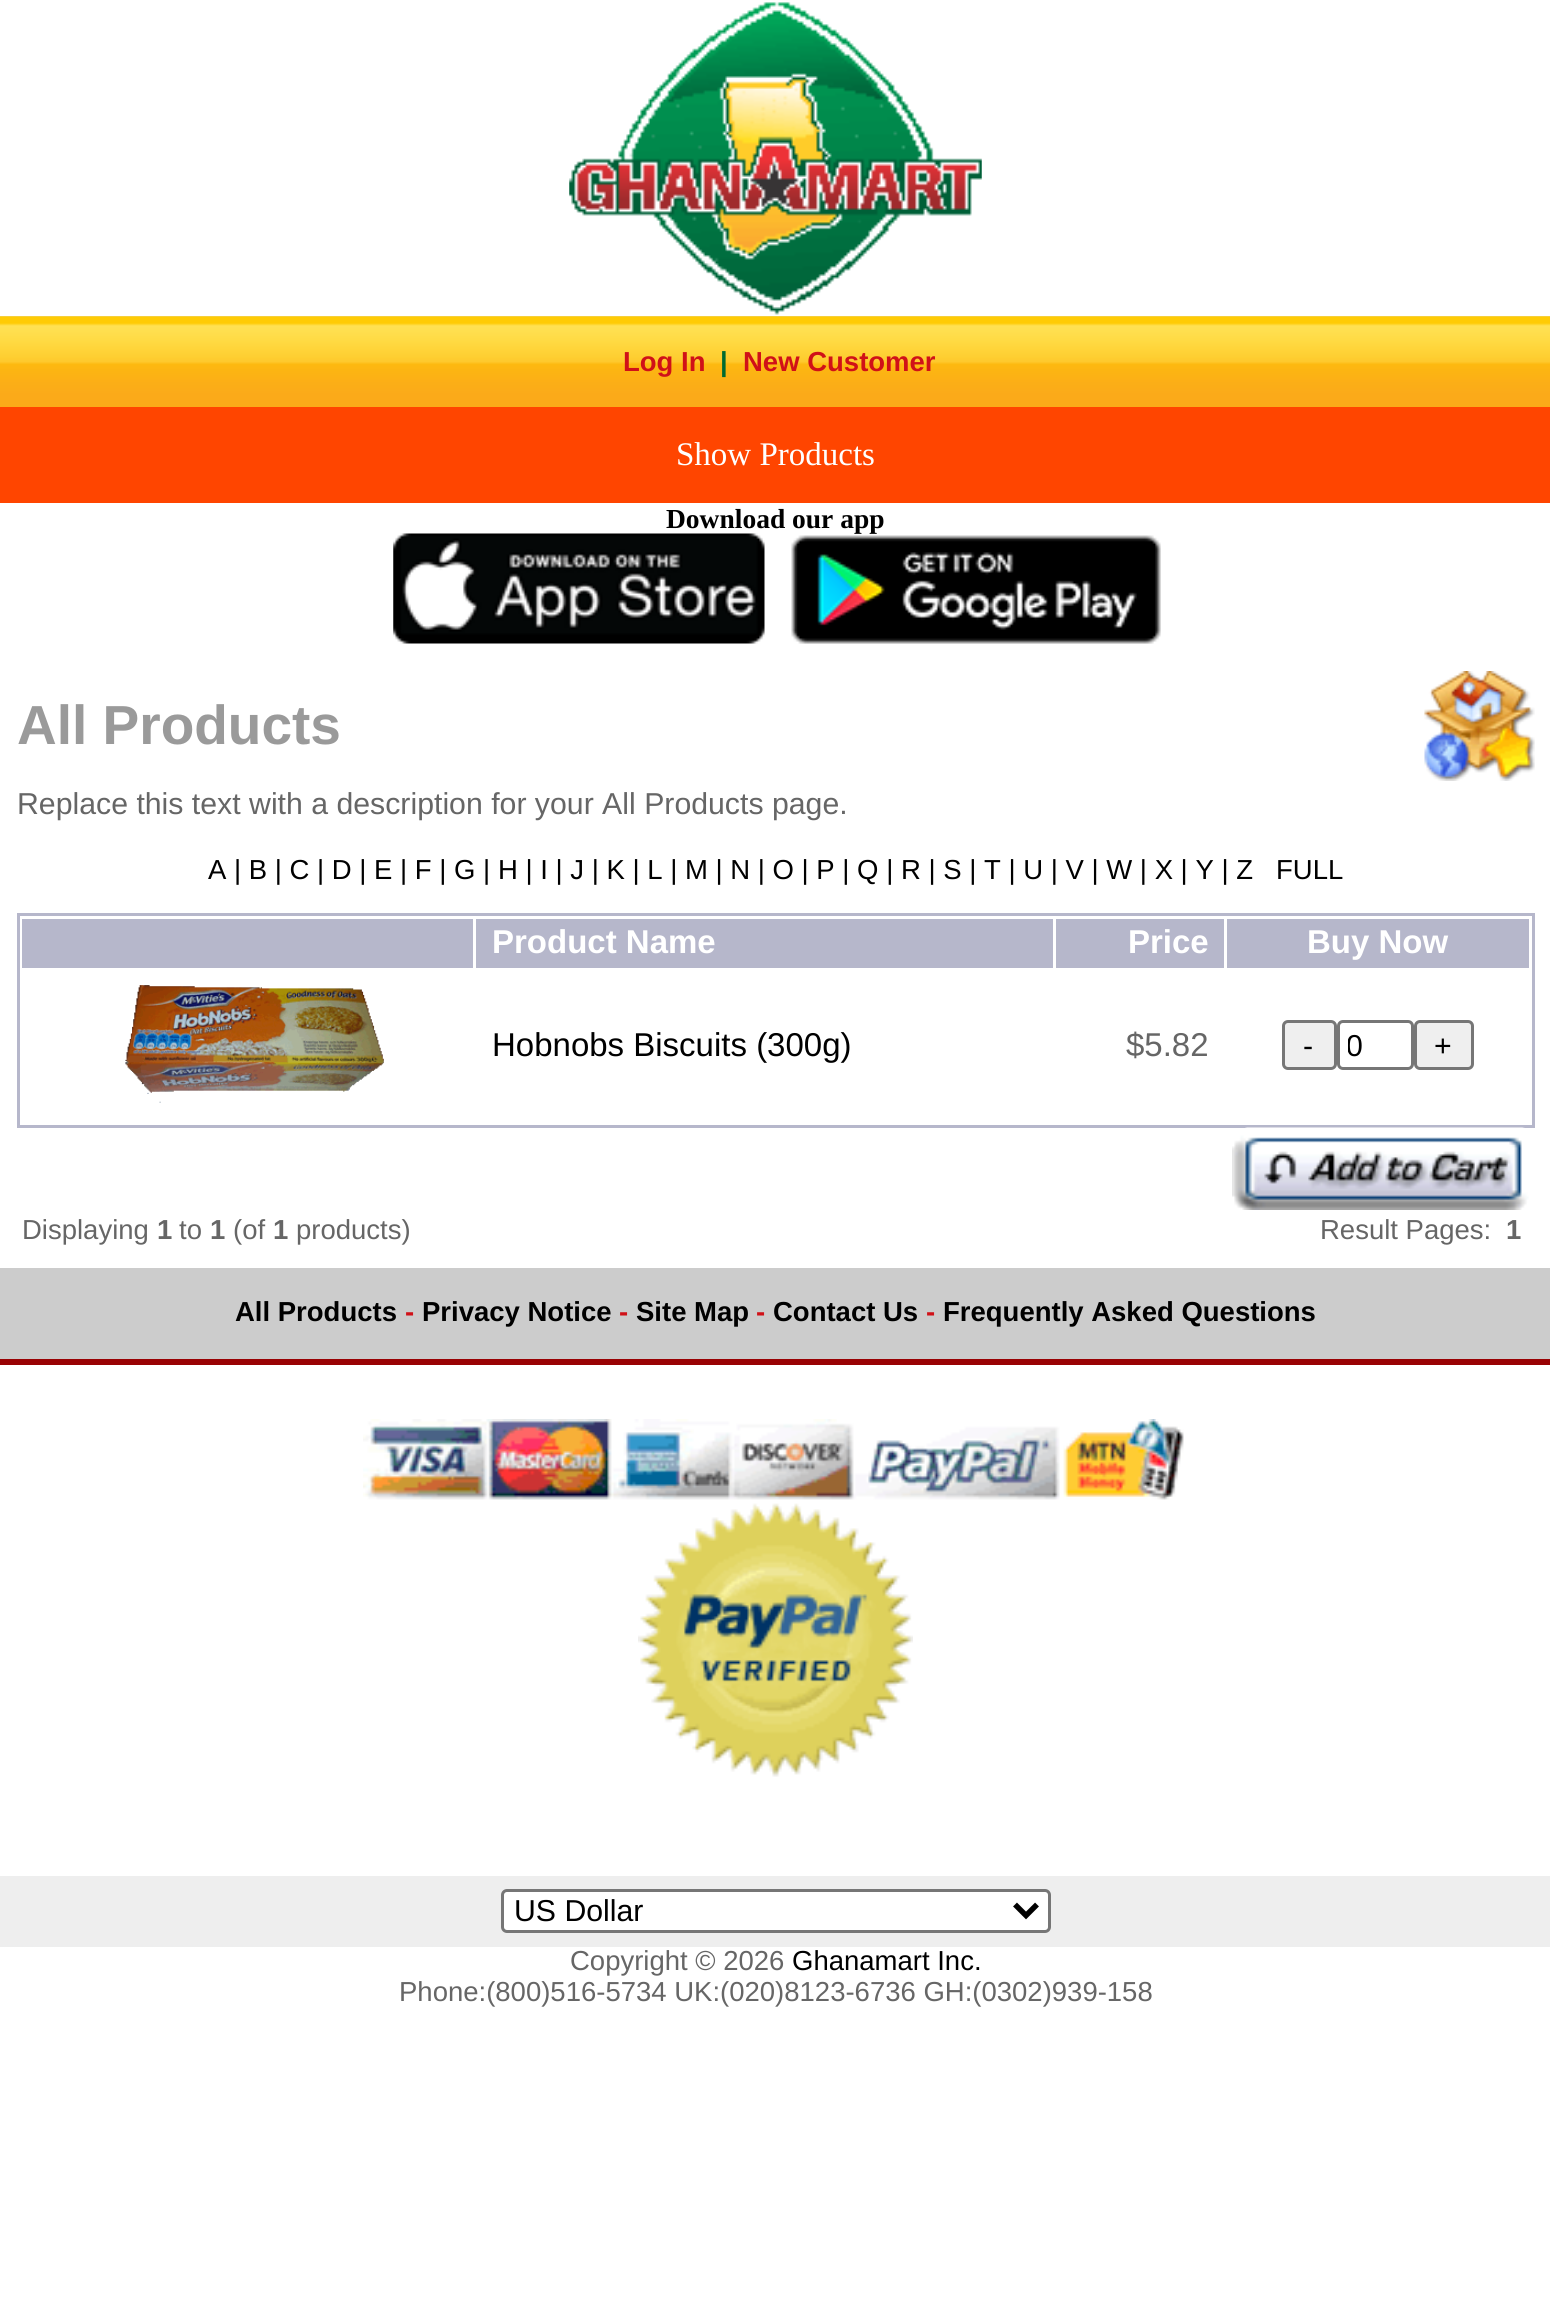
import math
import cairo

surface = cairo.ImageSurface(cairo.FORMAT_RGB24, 1550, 2310)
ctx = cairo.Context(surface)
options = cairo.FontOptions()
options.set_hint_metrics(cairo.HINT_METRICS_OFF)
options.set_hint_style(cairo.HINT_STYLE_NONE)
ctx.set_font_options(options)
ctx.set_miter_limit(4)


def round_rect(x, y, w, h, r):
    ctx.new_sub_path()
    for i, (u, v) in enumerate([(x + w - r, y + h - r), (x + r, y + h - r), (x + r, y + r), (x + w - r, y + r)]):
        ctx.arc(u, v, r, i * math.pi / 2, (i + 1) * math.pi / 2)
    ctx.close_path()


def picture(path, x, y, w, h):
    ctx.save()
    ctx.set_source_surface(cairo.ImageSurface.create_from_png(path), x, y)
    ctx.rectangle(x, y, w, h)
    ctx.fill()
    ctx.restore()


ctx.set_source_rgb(1, 1, 1)
ctx.paint()
picture("img1.png", 569, 2, 413, 313)
picture("img2.png", 0, 316, 1550, 91)
ctx.select_font_face("Liberation Sans", cairo.FONT_SLANT_NORMAL, cairo.FONT_WEIGHT_BOLD)
ctx.set_font_size(27.5)
ctx.set_source_rgb(0.816, 0.067, 0.094)
ctx.move_to(623, 371)
ctx.show_text("Log In")
ctx.set_source_rgb(0, 0.416, 0.188)
ctx.move_to(720, 371)
ctx.show_text("|")
ctx.set_source_rgb(0.816, 0.067, 0.094)
ctx.move_to(743, 371)
ctx.show_text("New Customer")
ctx.set_source_rgb(1, 0.271, 0)
ctx.rectangle(0, 407, 1550, 96)
ctx.fill()
ctx.select_font_face("Liberation Serif")
ctx.set_font_size(33)
ctx.set_source_rgb(1, 1, 1)
ctx.move_to(676, 465)
ctx.show_text("Show Products")
ctx.select_font_face("Liberation Serif", cairo.FONT_SLANT_NORMAL, cairo.FONT_WEIGHT_BOLD)
ctx.set_font_size(27.5)
ctx.set_source_rgb(0, 0, 0)
ctx.move_to(666, 528)
ctx.show_text("Download our app")
picture("img3.png", 393, 533, 372, 111)
picture("img4.png", 791, 535, 370, 109)
ctx.select_font_face("Liberation Sans", cairo.FONT_SLANT_NORMAL, cairo.FONT_WEIGHT_BOLD)
ctx.set_font_size(55)
ctx.set_source_rgb(0.604, 0.604, 0.604)
ctx.move_to(17, 744)
ctx.show_text("All Products")
picture("img5.png", 1424, 671, 111, 110)
ctx.select_font_face("Liberation Sans")
ctx.set_font_size(30.25)
ctx.set_source_rgb(0.4, 0.4, 0.4)
ctx.move_to(17, 814)
ctx.show_text("Replace this text with a description for your All Products page.")
ctx.set_font_size(27.5)
ctx.set_source_rgb(0, 0, 0)
ctx.move_to(208, 879)
ctx.show_text("A | B | C | D | E | F | G | H | I | J | K | L | M | N | O | P | Q | R | S | T | U | V | W | X | Y | Z")
ctx.move_to(1276, 879)
ctx.show_text("FULL")
ctx.rectangle(18.5, 914.5, 1515, 212)
ctx.set_source_rgb(0.714, 0.718, 0.796)
ctx.set_line_width(3)
ctx.stroke()
ctx.rectangle(22, 919, 451, 49)
ctx.fill()
ctx.rectangle(476, 919, 577, 49)
ctx.fill()
ctx.select_font_face("Liberation Sans", cairo.FONT_SLANT_NORMAL, cairo.FONT_WEIGHT_BOLD)
ctx.set_font_size(33)
ctx.set_source_rgb(1, 1, 1)
ctx.move_to(492, 953)
ctx.show_text("Product Name")
ctx.set_source_rgb(0.714, 0.718, 0.796)
ctx.rectangle(1056, 919, 168, 49)
ctx.fill()
ctx.set_source_rgb(1, 1, 1)
ctx.move_to(1128, 953)
ctx.show_text("Price")
ctx.set_source_rgb(0.714, 0.718, 0.796)
ctx.rectangle(1227, 919, 302, 49)
ctx.fill()
ctx.set_source_rgb(1, 1, 1)
ctx.move_to(1307, 953)
ctx.show_text("Buy Now")
picture("img6.png", 125, 985, 259, 118)
ctx.select_font_face("Liberation Sans")
ctx.set_source_rgb(0, 0, 0)
ctx.move_to(492, 1056)
ctx.show_text("Hobnobs Biscuits (300g)")
ctx.set_source_rgb(0.4, 0.4, 0.4)
ctx.move_to(1126, 1056)
ctx.show_text("$5.82")
ctx.set_source_rgb(0.937, 0.937, 0.937)
round_rect(1283.5, 1021.5, 52, 47, 4.5)
ctx.fill_preserve()
ctx.set_source_rgb(0.463, 0.463, 0.463)
ctx.stroke()
ctx.set_font_size(30.25)
ctx.set_source_rgb(0, 0, 0)
ctx.move_to(1303, 1056)
ctx.show_text("-")
round_rect(1338.5, 1021.5, 74, 47, 4.5)
ctx.set_source_rgb(0.463, 0.463, 0.463)
ctx.stroke()
ctx.save()
ctx.rectangle(1348, 1029, 55, 33)
ctx.clip()
ctx.set_source_rgb(0, 0, 0)
ctx.move_to(1346, 1056)
ctx.show_text("0")
ctx.restore()
ctx.set_source_rgb(0.937, 0.937, 0.937)
round_rect(1415.5, 1021.5, 57, 47, 4.5)
ctx.fill_preserve()
ctx.set_source_rgb(0.463, 0.463, 0.463)
ctx.stroke()
ctx.set_source_rgb(0, 0, 0)
ctx.move_to(1434, 1056)
ctx.show_text("+")
picture("img7.png", 1232, 1127, 297, 83)
ctx.set_font_size(27.5)
ctx.set_source_rgb(0.4, 0.4, 0.4)
ctx.move_to(22, 1239)
ctx.show_text("Displaying")
ctx.select_font_face("Liberation Sans", cairo.FONT_SLANT_NORMAL, cairo.FONT_WEIGHT_BOLD)
ctx.move_to(157, 1239)
ctx.show_text("1")
ctx.select_font_face("Liberation Sans")
ctx.move_to(179, 1239)
ctx.show_text("to")
ctx.select_font_face("Liberation Sans", cairo.FONT_SLANT_NORMAL, cairo.FONT_WEIGHT_BOLD)
ctx.move_to(210, 1239)
ctx.show_text("1")
ctx.select_font_face("Liberation Sans")
ctx.move_to(233, 1239)
ctx.show_text("(of")
ctx.select_font_face("Liberation Sans", cairo.FONT_SLANT_NORMAL, cairo.FONT_WEIGHT_BOLD)
ctx.move_to(273, 1239)
ctx.show_text("1")
ctx.select_font_face("Liberation Sans")
ctx.move_to(296, 1239)
ctx.show_text("products)")
ctx.move_to(1320, 1239)
ctx.show_text("Result Pages:")
ctx.select_font_face("Liberation Sans", cairo.FONT_SLANT_NORMAL, cairo.FONT_WEIGHT_BOLD)
ctx.move_to(1506, 1239)
ctx.show_text("1")
ctx.set_source_rgb(0.8, 0.8, 0.8)
ctx.rectangle(0, 1268, 1550, 91)
ctx.fill()
ctx.set_source_rgb(0, 0, 0)
ctx.move_to(235, 1321)
ctx.show_text("All Products")
ctx.set_source_rgb(0.816, 0.067, 0.094)
ctx.move_to(405, 1321)
ctx.show_text("-")
ctx.set_source_rgb(0, 0, 0)
ctx.move_to(422, 1321)
ctx.show_text("Privacy Notice")
ctx.set_source_rgb(0.816, 0.067, 0.094)
ctx.move_to(619, 1321)
ctx.show_text("-")
ctx.set_source_rgb(0, 0, 0)
ctx.move_to(636, 1321)
ctx.show_text("Site Map")
ctx.set_source_rgb(0.816, 0.067, 0.094)
ctx.move_to(756, 1321)
ctx.show_text("-")
ctx.set_source_rgb(0, 0, 0)
ctx.move_to(773, 1321)
ctx.show_text("Contact Us")
ctx.set_source_rgb(0.816, 0.067, 0.094)
ctx.move_to(926, 1321)
ctx.show_text("-")
ctx.set_source_rgb(0, 0, 0)
ctx.move_to(943, 1321)
ctx.show_text("Frequently Asked Questions")
ctx.set_source_rgb(0.6, 0.008, 0.016)
ctx.rectangle(0, 1359, 1550, 6)
ctx.fill()
picture("img8.png", 363, 1419, 821, 81)
picture("img9.png", 638, 1503, 275, 274)
ctx.set_source_rgb(0.933, 0.933, 0.933)
ctx.rectangle(0, 1876, 1550, 71)
ctx.fill()
ctx.set_source_rgb(1, 1, 1)
round_rect(502.5, 1890.5, 547, 41, 4.5)
ctx.fill_preserve()
ctx.set_source_rgb(0.463, 0.463, 0.463)
ctx.stroke()
ctx.new_path()
ctx.move_to(1015, 1904.5)
ctx.line_to(1026, 1915.5)
ctx.line_to(1037, 1904.5)
ctx.set_source_rgb(0, 0, 0)
ctx.set_line_width(5.5)
ctx.stroke()
ctx.select_font_face("Liberation Sans")
ctx.set_font_size(30.25)
ctx.move_to(514, 1921)
ctx.show_text("US Dollar")
ctx.set_font_size(27.5)
ctx.set_source_rgb(0.4, 0.4, 0.4)
ctx.move_to(570, 1970)
ctx.show_text("Copyright © 2026")
ctx.set_source_rgb(0, 0, 0)
ctx.move_to(792, 1970)
ctx.show_text("Ghanamart Inc.")
ctx.set_source_rgb(0.4, 0.4, 0.4)
ctx.move_to(399, 2001)
ctx.show_text("Phone:(800)516-5734 UK:(020)8123-6736 GH:(0302)939-158")
surface.write_to_png("page.png")
